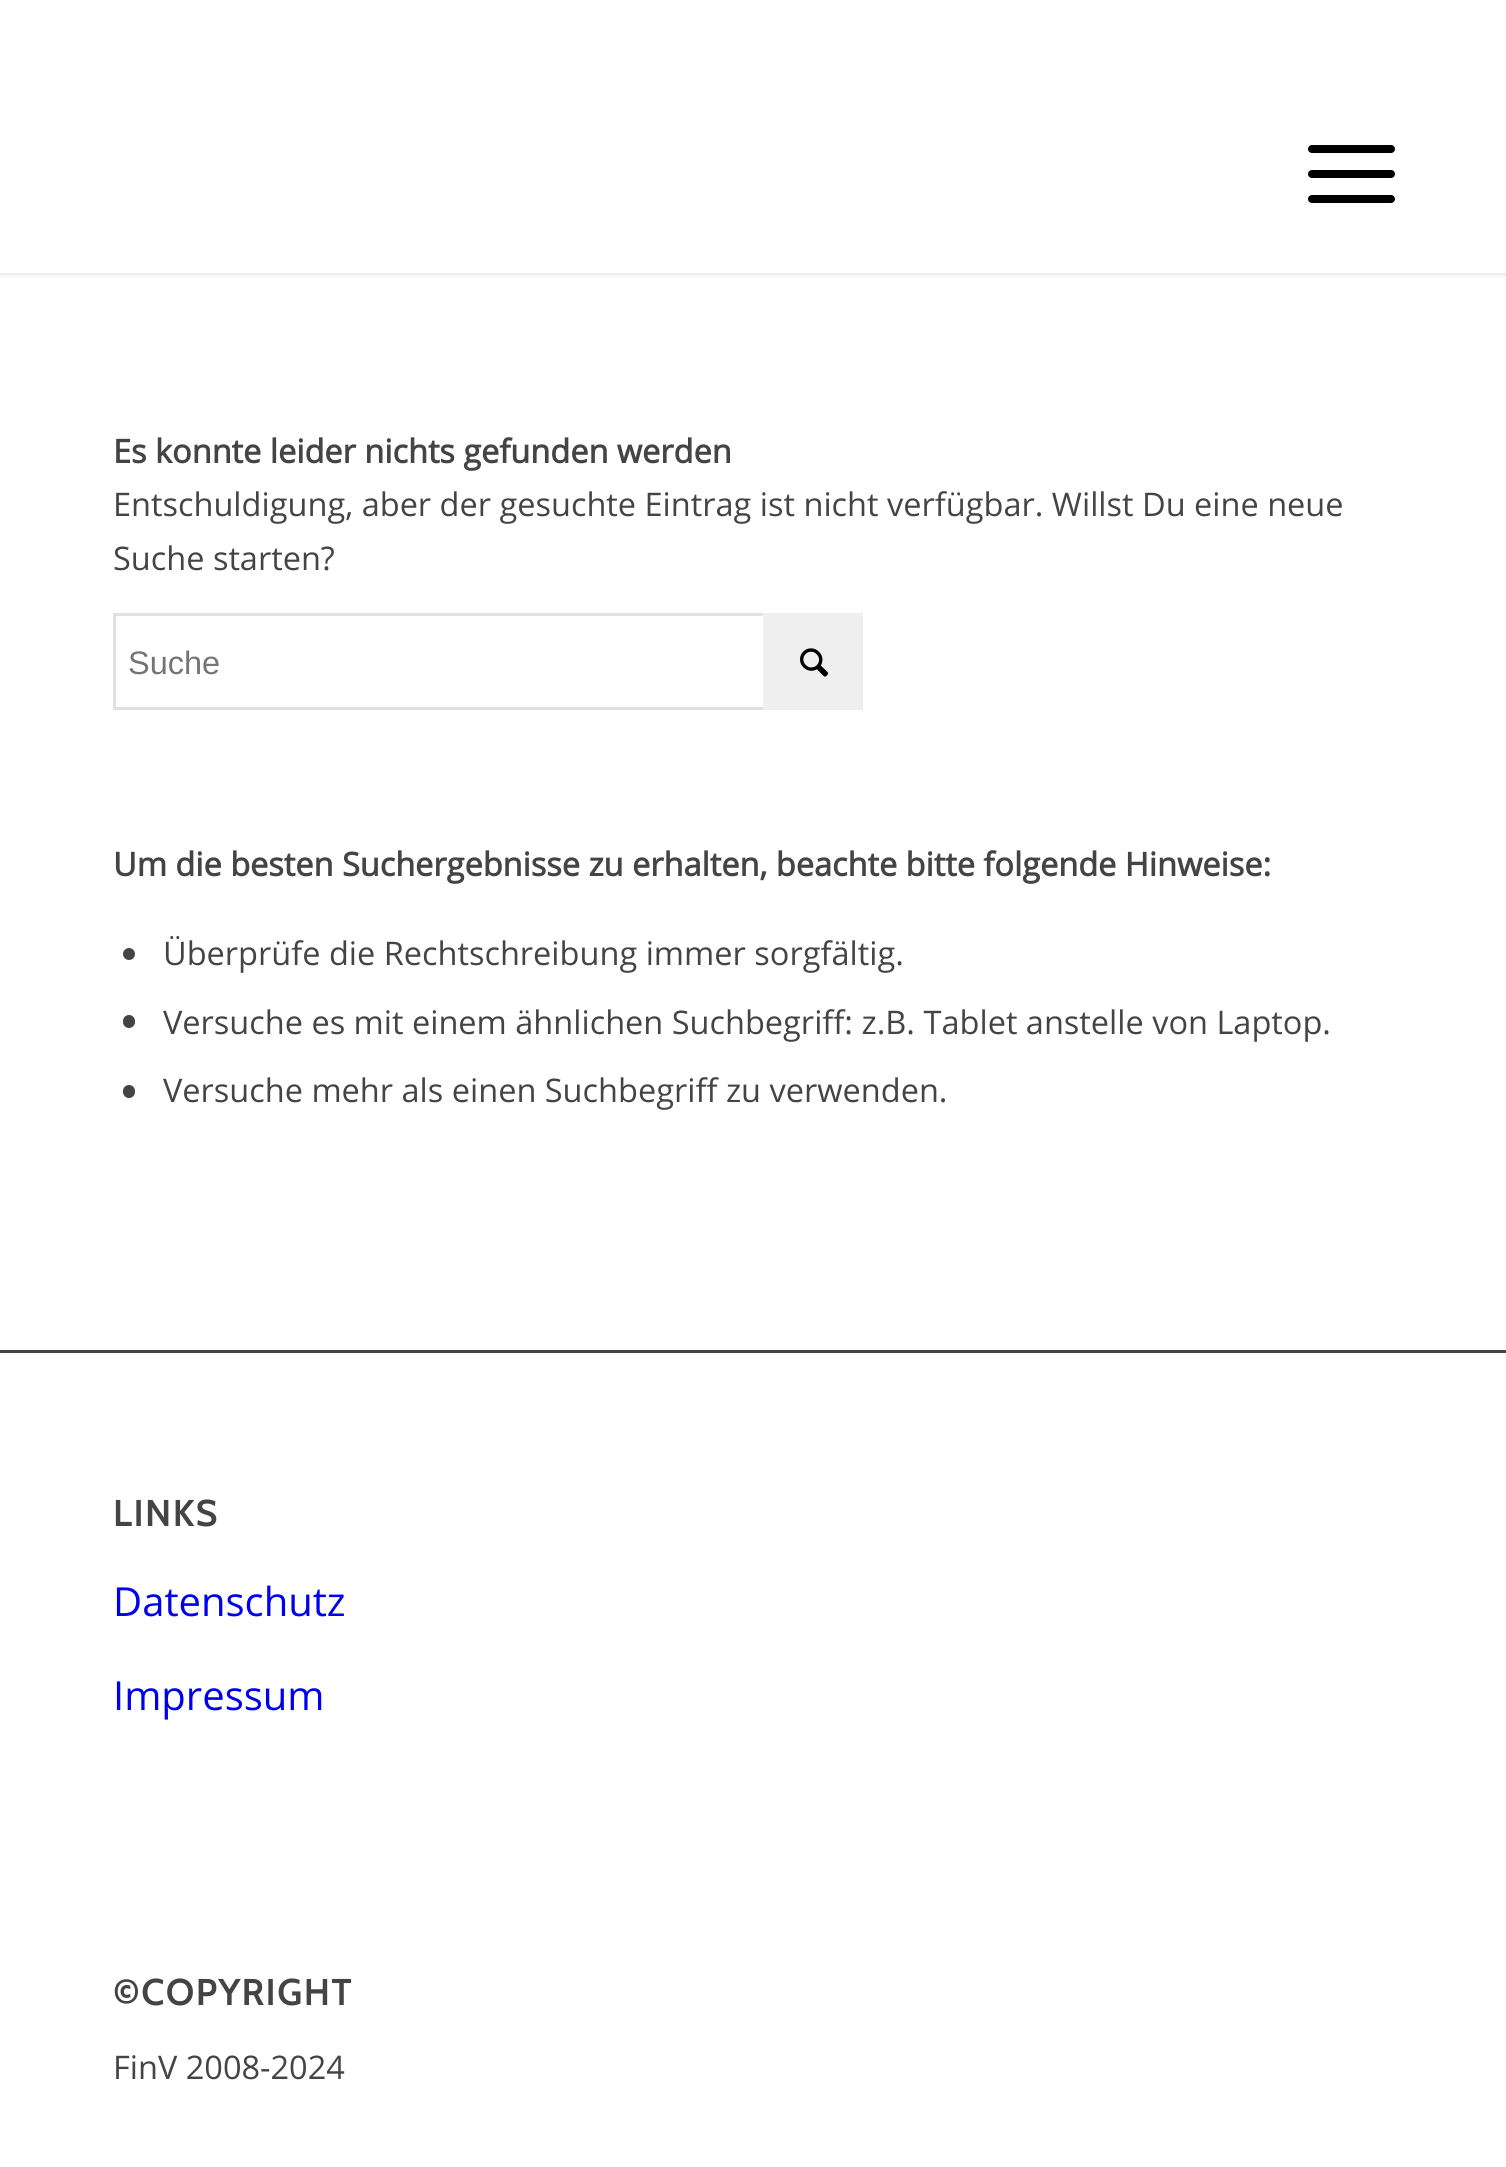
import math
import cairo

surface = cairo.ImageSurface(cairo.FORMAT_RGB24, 1506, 2167)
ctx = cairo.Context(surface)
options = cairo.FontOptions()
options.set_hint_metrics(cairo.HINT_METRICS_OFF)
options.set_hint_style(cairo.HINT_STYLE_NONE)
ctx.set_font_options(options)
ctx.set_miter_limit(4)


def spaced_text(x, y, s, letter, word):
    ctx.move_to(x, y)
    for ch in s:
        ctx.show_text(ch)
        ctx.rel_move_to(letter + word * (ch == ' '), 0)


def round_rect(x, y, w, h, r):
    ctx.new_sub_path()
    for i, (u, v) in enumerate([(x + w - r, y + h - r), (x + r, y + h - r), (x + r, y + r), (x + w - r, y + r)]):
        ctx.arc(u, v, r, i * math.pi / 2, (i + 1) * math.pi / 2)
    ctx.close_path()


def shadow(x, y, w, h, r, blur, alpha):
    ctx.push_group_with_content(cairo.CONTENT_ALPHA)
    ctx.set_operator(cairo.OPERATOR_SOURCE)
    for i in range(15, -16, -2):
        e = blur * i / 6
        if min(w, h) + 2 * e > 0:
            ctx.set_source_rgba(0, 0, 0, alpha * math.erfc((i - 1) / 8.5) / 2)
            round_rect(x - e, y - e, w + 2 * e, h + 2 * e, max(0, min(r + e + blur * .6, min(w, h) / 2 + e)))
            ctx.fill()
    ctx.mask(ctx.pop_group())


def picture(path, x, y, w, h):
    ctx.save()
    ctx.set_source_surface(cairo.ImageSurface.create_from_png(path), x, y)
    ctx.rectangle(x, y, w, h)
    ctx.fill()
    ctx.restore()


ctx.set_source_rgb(1, 1, 1)
ctx.paint()
ctx.save()
ctx.set_fill_rule(cairo.FILL_RULE_EVEN_ODD)
ctx.new_path()
ctx.move_to(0, 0)
ctx.line_to(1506, 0)
ctx.line_to(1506, 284)
ctx.line_to(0, 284)
ctx.close_path()
ctx.move_to(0, 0)
ctx.line_to(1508, 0)
ctx.line_to(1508, 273)
ctx.line_to(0, 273)
ctx.close_path()
ctx.clip()
ctx.set_source_rgb(0, 0, 0)
shadow(-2, -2, 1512, 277, 0, 2.5, 0.1)
ctx.restore()
ctx.set_source_rgb(0, 0, 0)
round_rect(1308, 170, 87, 8, 4)
ctx.fill()
round_rect(1308, 145, 87, 8, 4)
ctx.fill()
round_rect(1308, 195, 87, 8, 4)
ctx.fill()
ctx.select_font_face("Open Sans", cairo.FONT_SLANT_NORMAL, cairo.FONT_WEIGHT_BOLD)
ctx.set_font_size(32.5)
ctx.set_source_rgb(0.267, 0.267, 0.267)
ctx.move_to(113, 463)
ctx.show_text("Es konnte leider nichts gefunden werden")
ctx.select_font_face("Open Sans")
ctx.move_to(113, 516)
ctx.show_text("Entschuldigung, aber der gesuchte Eintrag ist nicht verfügbar. Willst Du eine neue")
ctx.move_to(113, 570)
ctx.show_text("Suche starten?")
ctx.rectangle(114.5, 614.5, 747, 94)
ctx.set_source_rgb(0.882, 0.882, 0.882)
ctx.set_line_width(3)
ctx.stroke()
ctx.select_font_face("Liberation Sans")
ctx.set_source_rgb(0.459, 0.459, 0.459)
ctx.move_to(128, 674)
ctx.show_text("Suche")
ctx.set_source_rgb(0.937, 0.937, 0.937)
ctx.rectangle(763, 613, 100, 97)
ctx.fill()
picture("img1.png", 800, 648, 29, 29)
ctx.select_font_face("Open Sans", cairo.FONT_SLANT_NORMAL, cairo.FONT_WEIGHT_BOLD)
ctx.set_source_rgb(0.267, 0.267, 0.267)
ctx.move_to(113, 876)
ctx.show_text("Um die besten Suchergebnisse zu erhalten, beachte bitte folgende Hinweise:")
ctx.new_path()
ctx.arc(129, 954, 6, 0, 2 * math.pi)
ctx.fill()
ctx.select_font_face("Open Sans")
ctx.move_to(163, 965)
ctx.show_text("Überprüfe die Rechtschreibung immer sorgfältig.")
round_rect(123, 1015, 12, 13, 6)
ctx.fill()
ctx.move_to(163, 1034)
ctx.show_text("Versuche es mit einem ähnlichen Suchbegriff: z.B. Tablet anstelle von Laptop.")
round_rect(123, 1085, 12, 13, 6)
ctx.fill()
ctx.move_to(163, 1102)
ctx.show_text("Versuche mehr als einen Suchbegriff zu verwenden.")
ctx.rectangle(0, 1350, 1506, 3)
ctx.fill()
ctx.select_font_face("Cabin", cairo.FONT_SLANT_NORMAL, cairo.FONT_WEIGHT_BOLD)
ctx.set_font_size(35.75)
spaced_text(113, 1526, "LINKS", 2.5, 0)
ctx.select_font_face("Open Sans")
ctx.set_font_size(40)
ctx.set_source_rgb(0, 0, 0.933)
ctx.move_to(113, 1616)
ctx.show_text("Datenschutz")
ctx.move_to(113, 1710)
ctx.show_text("Impressum")
ctx.select_font_face("Cabin", cairo.FONT_SLANT_NORMAL, cairo.FONT_WEIGHT_BOLD)
ctx.set_font_size(35.75)
ctx.set_source_rgb(0.267, 0.267, 0.267)
spaced_text(113, 2005, "©COPYRIGHT", 2.5, 0)
ctx.select_font_face("Open Sans")
ctx.set_font_size(32.5)
ctx.move_to(113, 2079)
ctx.show_text("FinV 2008-2024")
surface.write_to_png("page.png")
